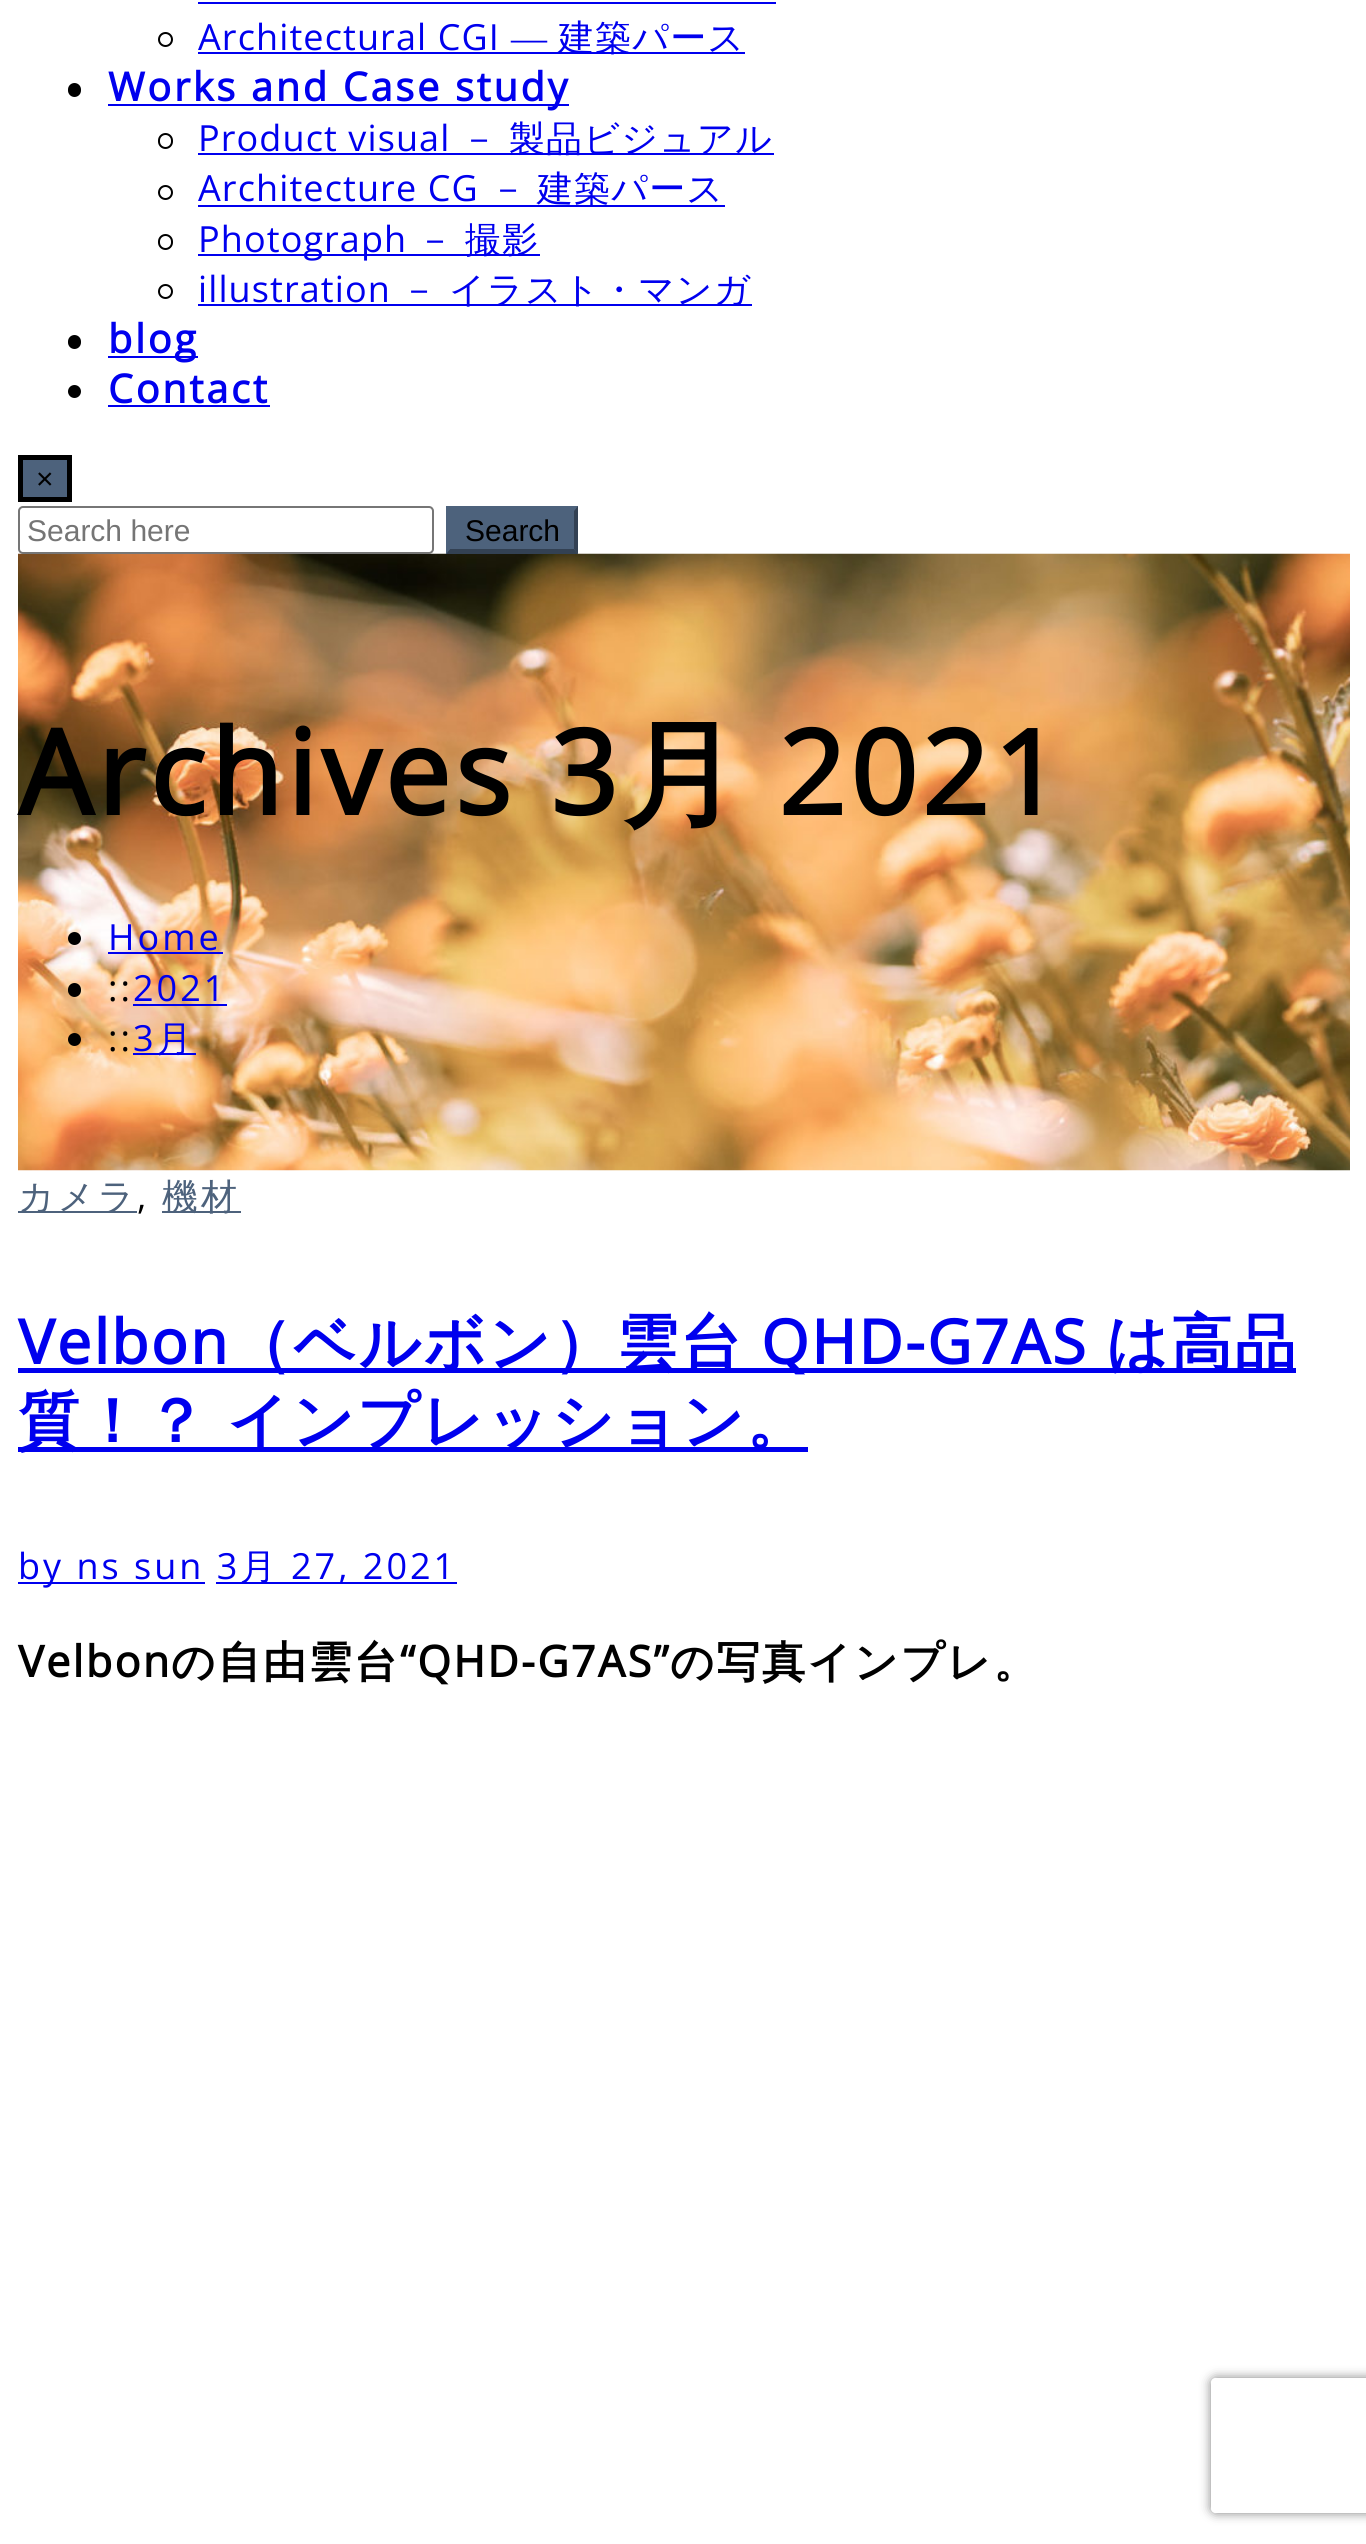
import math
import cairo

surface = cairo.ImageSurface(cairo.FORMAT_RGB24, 1366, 2544)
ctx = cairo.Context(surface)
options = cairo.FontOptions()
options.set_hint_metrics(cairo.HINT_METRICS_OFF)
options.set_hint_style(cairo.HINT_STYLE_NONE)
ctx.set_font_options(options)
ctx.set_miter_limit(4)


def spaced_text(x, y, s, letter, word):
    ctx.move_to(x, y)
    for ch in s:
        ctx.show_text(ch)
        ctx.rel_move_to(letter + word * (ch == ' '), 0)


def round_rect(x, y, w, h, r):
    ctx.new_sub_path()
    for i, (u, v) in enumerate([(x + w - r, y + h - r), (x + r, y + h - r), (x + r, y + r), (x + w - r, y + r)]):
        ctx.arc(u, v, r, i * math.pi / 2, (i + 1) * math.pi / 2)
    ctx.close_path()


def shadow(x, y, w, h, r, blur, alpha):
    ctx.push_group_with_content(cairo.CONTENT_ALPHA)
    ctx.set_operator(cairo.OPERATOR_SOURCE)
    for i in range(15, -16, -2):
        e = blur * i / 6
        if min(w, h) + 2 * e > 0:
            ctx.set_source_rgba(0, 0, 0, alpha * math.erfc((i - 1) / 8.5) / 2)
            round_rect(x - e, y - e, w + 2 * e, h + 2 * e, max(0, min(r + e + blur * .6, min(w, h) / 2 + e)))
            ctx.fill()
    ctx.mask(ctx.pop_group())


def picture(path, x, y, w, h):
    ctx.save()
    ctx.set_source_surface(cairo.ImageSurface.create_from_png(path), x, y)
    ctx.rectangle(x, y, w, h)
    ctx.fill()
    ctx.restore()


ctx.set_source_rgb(1, 1, 1)
ctx.paint()
ctx.set_source_rgb(0, 0, 0.933)
ctx.rectangle(198, 2, 578, 2)
ctx.fill()
ctx.arc(165.5, 39.5, 6.5, 0, 2 * math.pi)
ctx.set_source_rgb(0, 0, 0)
ctx.stroke()
ctx.select_font_face("Open Sans")
ctx.set_font_size(36)
ctx.set_source_rgb(0, 0, 0.933)
spaced_text(198, 50, "Architectural CGI", 1.1, 0)
ctx.select_font_face("Liberation Serif")
spaced_text(511, 50, "―", 1.1, 0)
ctx.rectangle(198, 52, 547, 2)
ctx.fill()
ctx.select_font_face("WenQuanYi Zen Hei Medium")
spaced_text(558, 50, "建築パース", 1.1, 0)
ctx.set_source_rgb(0, 0, 0)
round_rect(68, 83, 13, 14, 6.5)
ctx.fill()
ctx.set_source_rgb(0, 0, 0.933)
ctx.rectangle(108, 104, 461, 2)
ctx.fill()
ctx.select_font_face("Open Sans", cairo.FONT_SLANT_NORMAL, cairo.FONT_WEIGHT_BOLD)
ctx.set_font_size(39.6)
spaced_text(108, 101, "Works and Case study", 2.75, 0)
round_rect(159, 134, 13, 14, 6.5)
ctx.set_source_rgb(0, 0, 0)
ctx.stroke()
ctx.select_font_face("Open Sans")
ctx.set_font_size(36)
ctx.set_source_rgb(0, 0, 0.933)
spaced_text(198, 151, "Product visual", 1.1, 0)
ctx.select_font_face("WenQuanYi Zen Hei Medium")
spaced_text(461, 151, "－", 1.1, 0)
ctx.rectangle(198, 153, 576, 2)
ctx.fill()
spaced_text(509, 151, "製品ビジュアル", 1.1, 0)
ctx.new_path()
ctx.arc(165.5, 192.5, 6.5, 0, 2 * math.pi)
ctx.set_source_rgb(0, 0, 0)
ctx.stroke()
ctx.select_font_face("Open Sans")
ctx.set_source_rgb(0, 0, 0.933)
spaced_text(198, 201, "Architecture CG", 1.1, 0)
ctx.select_font_face("WenQuanYi Zen Hei Medium")
spaced_text(490, 201, "－", 1.1, 0)
ctx.rectangle(198, 205, 527, 2)
ctx.fill()
spaced_text(537, 201, "建築パース", 1.1, 0)
round_rect(159, 235, 13, 14, 6.5)
ctx.set_source_rgb(0, 0, 0)
ctx.stroke()
ctx.set_source_rgb(0, 0, 0.933)
ctx.rectangle(198, 254, 342, 2)
ctx.fill()
ctx.select_font_face("Open Sans")
spaced_text(198, 252, "Photograph", 1.1, 0)
ctx.select_font_face("WenQuanYi Zen Hei Medium")
spaced_text(417, 252, "－ 撮影", 1.1, -1)
ctx.new_path()
ctx.arc(165.5, 291.5, 6.5, 0, 2 * math.pi)
ctx.set_source_rgb(0, 0, 0)
ctx.stroke()
ctx.select_font_face("Open Sans")
ctx.set_source_rgb(0, 0, 0.933)
spaced_text(198, 302, "illustration", 1.1, 0)
ctx.rectangle(198, 304, 554, 2)
ctx.fill()
ctx.select_font_face("WenQuanYi Zen Hei Medium")
spaced_text(401, 302, "－ イラスト・マンガ", 1.1, -1)
ctx.set_source_rgb(0, 0, 0)
round_rect(68, 335, 13, 14, 6.5)
ctx.fill()
ctx.set_source_rgb(0, 0, 0.933)
ctx.rectangle(108, 356, 90, 2)
ctx.fill()
ctx.select_font_face("Open Sans", cairo.FONT_SLANT_NORMAL, cairo.FONT_WEIGHT_BOLD)
ctx.set_font_size(39.6)
spaced_text(108, 353, "blog", 2.75, 0)
ctx.set_source_rgb(0, 0, 0)
ctx.new_path()
ctx.arc(74.5, 391.5, 6.5, 0, 2 * math.pi)
ctx.fill()
ctx.set_source_rgb(0, 0, 0.933)
spaced_text(108, 403, "Contact", 2.75, 0)
ctx.rectangle(108, 405, 162, 2)
ctx.fill()
ctx.set_source_rgb(0.302, 0.384, 0.486)
ctx.rectangle(20.5, 457.5, 49, 42)
ctx.fill_preserve()
ctx.set_source_rgb(0, 0, 0)
ctx.set_line_width(5)
ctx.stroke()
ctx.select_font_face("Liberation Sans")
ctx.set_font_size(30)
ctx.move_to(36, 489)
ctx.show_text("×")
picture("img1.png", 18, 553, 1332, 618)
ctx.set_source_rgb(1, 1, 1)
round_rect(19, 507, 414, 46, 4)
ctx.fill_preserve()
ctx.set_source_rgb(0.463, 0.463, 0.463)
ctx.set_line_width(2)
ctx.stroke()
ctx.set_source_rgb(0.459, 0.459, 0.459)
ctx.move_to(27, 541)
ctx.show_text("Search here")
ctx.set_source_rgb(0.302, 0.384, 0.486)
ctx.rectangle(446, 506, 132, 48)
ctx.fill()
ctx.set_source_rgb(0.2, 0.255, 0.325)
ctx.new_path()
ctx.move_to(578, 506)
ctx.line_to(578, 554)
ctx.line_to(574, 549)
ctx.line_to(574, 511)
ctx.close_path()
ctx.fill()
ctx.new_path()
ctx.move_to(578, 554)
ctx.line_to(446, 554)
ctx.line_to(450, 549)
ctx.line_to(574, 549)
ctx.close_path()
ctx.fill()
ctx.set_source_rgb(0.302, 0.384, 0.486)
ctx.new_path()
ctx.move_to(446, 554)
ctx.line_to(446, 506)
ctx.line_to(450, 511)
ctx.line_to(450, 549)
ctx.close_path()
ctx.fill()
ctx.set_source_rgb(0, 0, 0)
ctx.move_to(465, 541)
ctx.show_text("Search")
ctx.select_font_face("Open Sans", cairo.FONT_SLANT_NORMAL, cairo.FONT_WEIGHT_BOLD)
ctx.set_font_size(117)
spaced_text(18, 815, "Archives 3", 4.75, 0)
ctx.select_font_face("WenQuanYi Zen Hei", cairo.FONT_SLANT_NORMAL, cairo.FONT_WEIGHT_BOLD)
spaced_text(622, 815, "月", 4.75, 0)
ctx.select_font_face("Open Sans", cairo.FONT_SLANT_NORMAL, cairo.FONT_WEIGHT_BOLD)
spaced_text(778, 815, "2021", 4.75, 0)
ctx.new_path()
ctx.arc(74.5, 938.5, 6.5, 0, 2 * math.pi)
ctx.fill()
ctx.select_font_face("Open Sans")
ctx.set_font_size(36)
ctx.set_source_rgb(0, 0, 0.933)
spaced_text(108, 950, "Home", 3, 0)
ctx.rectangle(108, 952, 115, 2)
ctx.fill()
ctx.set_source_rgb(0, 0, 0)
round_rect(68, 983, 13, 14, 6.5)
ctx.fill()
spaced_text(108, 1001, "::", 3, 0)
ctx.set_source_rgb(0, 0, 0.933)
spaced_text(133, 1001, "2021", 3, 0)
ctx.rectangle(133, 1004, 94, 2)
ctx.fill()
ctx.set_source_rgb(0, 0, 0)
ctx.arc(74.5, 1039.5, 6.5, 0, 2 * math.pi)
ctx.fill()
spaced_text(108, 1051, "::", 3, 0)
ctx.set_source_rgb(0, 0, 0.933)
spaced_text(133, 1051, "3", 3, 0)
ctx.rectangle(133, 1053, 63, 2)
ctx.fill()
ctx.select_font_face("WenQuanYi Zen Hei Medium")
spaced_text(156, 1051, "月", 3, 0)
ctx.set_source_rgb(0.302, 0.384, 0.486)
ctx.rectangle(18, 1211, 119, 2)
ctx.fill()
spaced_text(18, 1209, "カメラ", 3, 0)
ctx.select_font_face("Open Sans")
ctx.set_source_rgb(0, 0, 0)
spaced_text(137, 1209, ",", 3, 0)
ctx.set_source_rgb(0.302, 0.384, 0.486)
ctx.rectangle(162, 1211, 79, 2)
ctx.fill()
ctx.select_font_face("WenQuanYi Zen Hei Medium")
spaced_text(162, 1209, "機材", 3, 0)
ctx.select_font_face("Open Sans", cairo.FONT_SLANT_NORMAL, cairo.FONT_WEIGHT_BOLD)
ctx.set_font_size(61.25)
ctx.set_source_rgb(0, 0, 0.933)
spaced_text(18, 1364, "Velbon", 2.25, 0)
ctx.rectangle(18, 1368, 1278, 5)
ctx.fill()
ctx.select_font_face("WenQuanYi Zen Hei", cairo.FONT_SLANT_NORMAL, cairo.FONT_WEIGHT_BOLD)
spaced_text(230, 1364, "（ベルボン）雲台", 2.25, 0)
ctx.select_font_face("Open Sans", cairo.FONT_SLANT_NORMAL, cairo.FONT_WEIGHT_BOLD)
spaced_text(761, 1364, "QHD-G7AS", 2.25, 0)
ctx.select_font_face("WenQuanYi Zen Hei", cairo.FONT_SLANT_NORMAL, cairo.FONT_WEIGHT_BOLD)
spaced_text(1106, 1364, "は高品", 2.25, 0)
ctx.rectangle(18, 1447, 790, 5)
ctx.fill()
spaced_text(18, 1442, "質！？ インプレッション。", 2.25, -2)
ctx.rectangle(18, 1582, 187, 2)
ctx.fill()
ctx.select_font_face("Open Sans")
ctx.set_font_size(36)
spaced_text(18, 1579, "by ns sun 3", 3, 0)
ctx.rectangle(216, 1582, 241, 2)
ctx.fill()
ctx.select_font_face("WenQuanYi Zen Hei Medium")
spaced_text(240, 1579, "月", 3, 0)
ctx.select_font_face("Open Sans")
spaced_text(291, 1579, "27, 2021", 3, 0)
ctx.select_font_face("Open Sans", cairo.FONT_SLANT_NORMAL, cairo.FONT_WEIGHT_BOLD)
ctx.set_font_size(43.25)
ctx.set_source_rgb(0, 0, 0)
spaced_text(18, 1677, "Velbon", 2.25, 0)
ctx.select_font_face("WenQuanYi Zen Hei", cairo.FONT_SLANT_NORMAL, cairo.FONT_WEIGHT_BOLD)
spaced_text(171, 1677, "の自由雲台", 2.25, 0)
ctx.select_font_face("Open Sans", cairo.FONT_SLANT_NORMAL, cairo.FONT_WEIGHT_BOLD)
spaced_text(400, 1677, "“QHD-G7AS”", 2.25, 0)
ctx.select_font_face("WenQuanYi Zen Hei", cairo.FONT_SLANT_NORMAL, cairo.FONT_WEIGHT_BOLD)
spaced_text(670, 1677, "の写真インプレ。", 2.25, 0)
ctx.save()
ctx.set_fill_rule(cairo.FILL_RULE_EVEN_ODD)
ctx.new_path()
ctx.move_to(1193, 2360)
ctx.line_to(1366, 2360)
ctx.line_to(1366, 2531)
ctx.line_to(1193, 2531)
ctx.close_path()
ctx.move_to(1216, 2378)
ctx.line_to(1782, 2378)
ctx.curve_to(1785, 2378, 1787, 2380, 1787, 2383)
ctx.line_to(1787, 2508)
ctx.curve_to(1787, 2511, 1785, 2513, 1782, 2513)
ctx.line_to(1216, 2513)
ctx.curve_to(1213, 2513, 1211, 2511, 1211, 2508)
ctx.line_to(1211, 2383)
ctx.curve_to(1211, 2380, 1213, 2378, 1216, 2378)
ctx.close_path()
ctx.clip()
ctx.set_source_rgb(0.502, 0.502, 0.502)
shadow(1211, 2378, 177, 135, 5, 5.5, 1)
ctx.restore()
surface.write_to_png("page.png")
